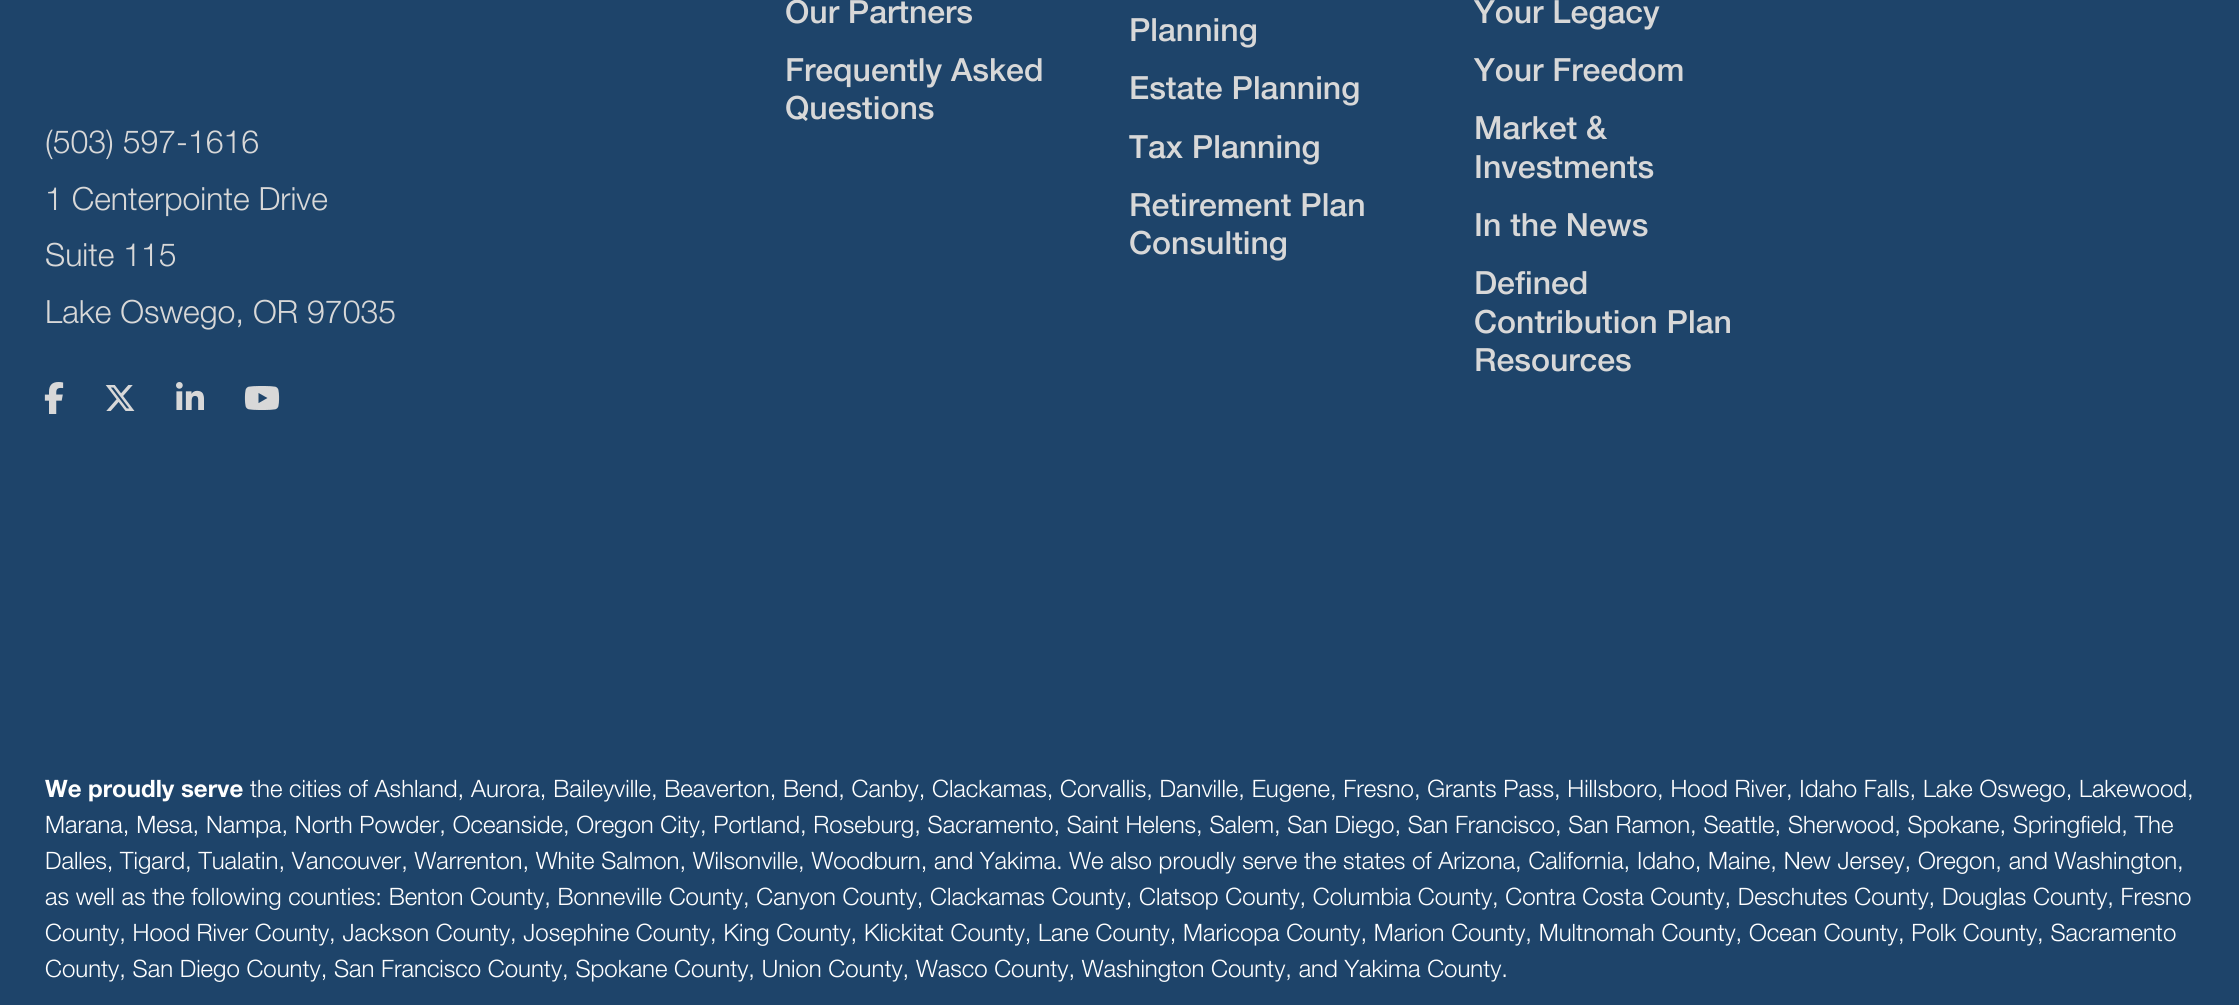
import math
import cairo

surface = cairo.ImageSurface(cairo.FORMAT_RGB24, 2239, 1005)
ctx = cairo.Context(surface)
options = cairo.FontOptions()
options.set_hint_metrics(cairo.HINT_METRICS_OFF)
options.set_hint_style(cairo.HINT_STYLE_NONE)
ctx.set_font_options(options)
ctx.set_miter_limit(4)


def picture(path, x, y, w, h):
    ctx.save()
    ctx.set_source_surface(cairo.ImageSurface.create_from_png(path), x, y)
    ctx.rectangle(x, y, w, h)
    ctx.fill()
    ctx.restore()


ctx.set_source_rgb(0.118, 0.267, 0.416)
ctx.paint()
ctx.select_font_face("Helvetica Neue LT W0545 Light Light")
ctx.set_font_size(32)
ctx.set_source_rgb(0.847, 0.847, 0.847)
ctx.move_to(45, 153)
ctx.show_text("(503) 597-1616")
ctx.move_to(45, 210)
ctx.show_text("1 Centerpointe Drive")
ctx.move_to(45, 266)
ctx.show_text("Suite 115")
ctx.move_to(45, 323)
ctx.show_text("Lake Oswego, OR 97035")
picture("img1.png", 44, 382, 20, 32)
picture("img2.png", 105, 385, 30, 26)
picture("img3.png", 176, 382, 28, 28)
picture("img4.png", 244, 386, 36, 24)
ctx.select_font_face("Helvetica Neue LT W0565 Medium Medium")
ctx.move_to(785, 23)
ctx.show_text("Our Partners")
ctx.move_to(785, 81)
ctx.show_text("Frequently Asked")
ctx.move_to(785, 119)
ctx.show_text("Questions")
ctx.move_to(1129, 41)
ctx.show_text("Planning")
ctx.move_to(1129, 99)
ctx.show_text("Estate Planning")
ctx.move_to(1129, 158)
ctx.show_text("Tax Planning")
ctx.move_to(1129, 216)
ctx.show_text("Retirement Plan")
ctx.move_to(1129, 254)
ctx.show_text("Consulting")
ctx.move_to(1474, 23)
ctx.show_text("Your Legacy")
ctx.move_to(1474, 81)
ctx.show_text("Your Freedom")
ctx.move_to(1474, 139)
ctx.show_text("Market &")
ctx.move_to(1474, 178)
ctx.show_text("Investments")
ctx.move_to(1474, 236)
ctx.show_text("In the News")
ctx.move_to(1474, 294)
ctx.show_text("Defined")
ctx.move_to(1474, 333)
ctx.show_text("Contribution Plan")
ctx.move_to(1474, 371)
ctx.show_text("Resources")
ctx.select_font_face("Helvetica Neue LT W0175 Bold", cairo.FONT_SLANT_NORMAL, cairo.FONT_WEIGHT_BOLD)
ctx.set_font_size(24)
ctx.set_source_rgb(1, 1, 1)
ctx.move_to(45, 797)
ctx.show_text("We proudly serve")
ctx.select_font_face("Helvetica Neue LT W0545 Light Light")
ctx.move_to(250, 797)
ctx.show_text("the cities of Ashland, Aurora, Baileyville, Beaverton, Bend, Canby, Clackamas, Corvallis, Danville, Eugene, Fresno, Grants Pass, Hillsboro, Hood River, Idaho Falls, Lake Oswego, Lakewood,")
ctx.move_to(45, 833)
ctx.show_text("Marana, Mesa, Nampa, North Powder, Oceanside, Oregon City, Portland, Roseburg, Sacramento, Saint Helens, Salem, San Diego, San Francisco, San Ramon, Seattle, Sherwood, Spokane, Springfield, The")
ctx.move_to(45, 869)
ctx.show_text("Dalles, Tigard, Tualatin, Vancouver, Warrenton, White Salmon, Wilsonville, Woodburn, and Yakima. We also proudly serve the states of Arizona, California, Idaho, Maine, New Jersey, Oregon, and Washington,")
ctx.move_to(45, 905)
ctx.show_text("as well as the following counties: Benton County, Bonneville County, Canyon County, Clackamas County, Clatsop County, Columbia County, Contra Costa County, Deschutes County, Douglas County, Fresno")
ctx.move_to(45, 941)
ctx.show_text("County, Hood River County, Jackson County, Josephine County, King County, Klickitat County, Lane County, Maricopa County, Marion County, Multnomah County, Ocean County, Polk County, Sacramento")
ctx.move_to(45, 977)
ctx.show_text("County, San Diego County, San Francisco County, Spokane County, Union County, Wasco County, Washington County, and Yakima County.")
surface.write_to_png("page.png")
